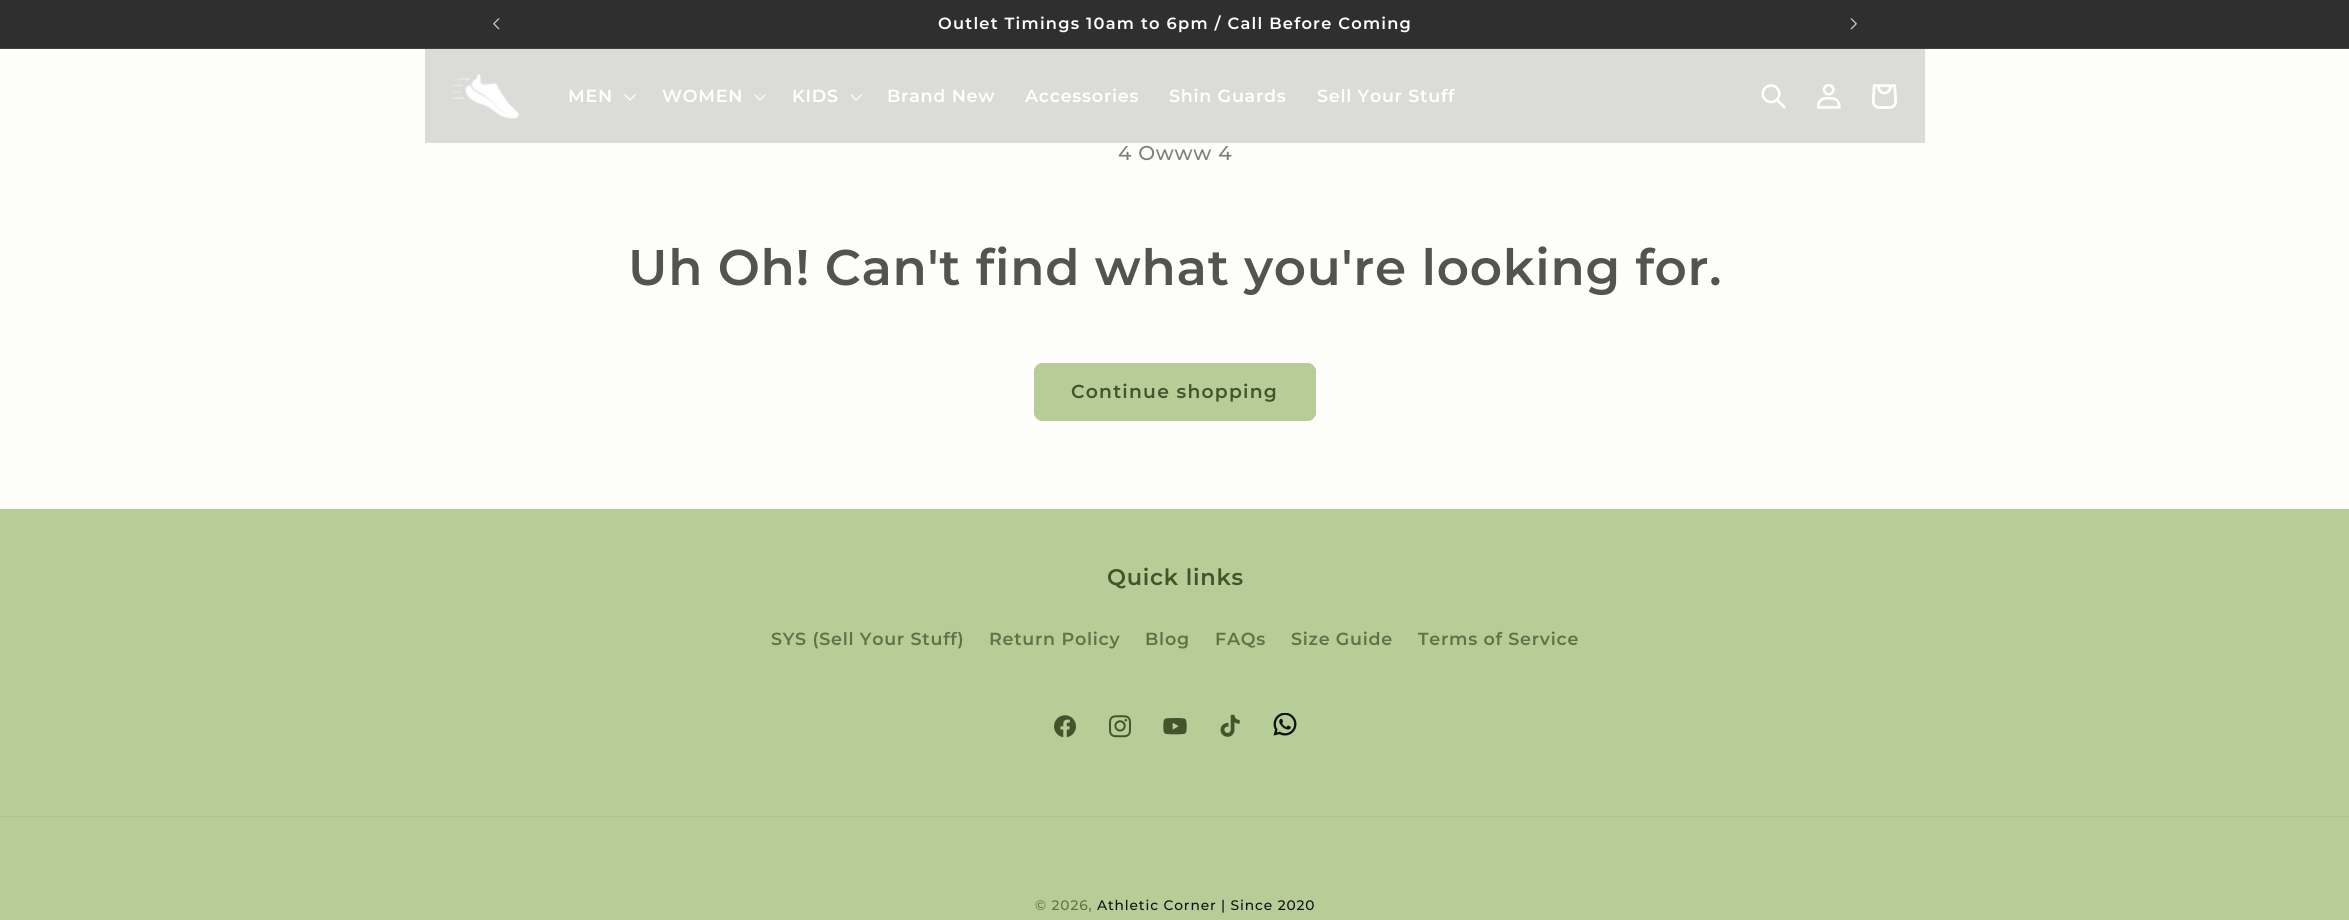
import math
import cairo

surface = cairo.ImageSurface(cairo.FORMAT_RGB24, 2349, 920)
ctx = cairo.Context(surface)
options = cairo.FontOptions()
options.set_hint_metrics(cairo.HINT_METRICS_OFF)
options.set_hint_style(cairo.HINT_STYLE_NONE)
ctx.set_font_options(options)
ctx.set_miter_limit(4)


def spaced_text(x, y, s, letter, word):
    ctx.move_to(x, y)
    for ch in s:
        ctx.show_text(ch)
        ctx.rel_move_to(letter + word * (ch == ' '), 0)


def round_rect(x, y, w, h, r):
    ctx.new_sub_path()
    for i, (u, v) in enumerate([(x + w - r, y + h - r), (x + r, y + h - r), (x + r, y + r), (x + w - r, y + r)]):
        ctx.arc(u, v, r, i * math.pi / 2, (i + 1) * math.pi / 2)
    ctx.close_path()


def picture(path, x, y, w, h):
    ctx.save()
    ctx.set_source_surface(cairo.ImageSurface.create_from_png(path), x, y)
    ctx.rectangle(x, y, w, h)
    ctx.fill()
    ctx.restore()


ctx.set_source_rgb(0.992, 0.992, 0.973)
ctx.paint()
ctx.set_source_rgb(0.184, 0.184, 0.184)
ctx.rectangle(0, 0, 2349, 48)
ctx.fill()
ctx.set_source_rgb(0.251, 0.251, 0.251)
ctx.rectangle(0, 48, 2349, 1)
ctx.fill()
picture("img1.png", 493, 18, 7, 12)
ctx.select_font_face("Montserrat SemiBold")
ctx.set_font_size(16.25)
ctx.set_source_rgb(1, 1, 1)
spaced_text(938, 29, "Outlet Timings 10am to 6pm / Call Before Coming", 1.25, 0)
picture("img2.png", 1850, 18, 7, 12)
ctx.set_source_rgb(0.859, 0.859, 0.843)
ctx.rectangle(425, 49, 1500, 94)
ctx.fill()
picture("img3.png", 451, 74, 68, 45)
ctx.set_font_size(17.5)
ctx.set_source_rgb(1, 1, 1)
spaced_text(568, 102, "MEN", 0.75, 0)
picture("img4.png", 624, 94, 12, 7)
spaced_text(662, 102, "WOMEN", 0.75, 0)
picture("img4.png", 754, 94, 12, 7)
spaced_text(792, 102, "KIDS", 0.75, 0)
picture("img5.png", 850, 94, 12, 7)
spaced_text(887, 102, "Brand New", 0.75, 0)
spaced_text(1025, 102, "Accessories", 0.75, 0)
spaced_text(1169, 102, "Shin Guards", 0.75, 0)
spaced_text(1317, 102, "Sell Your Stuff", 0.75, 0)
picture("img6.png", 1761, 84, 25, 25)
picture("img7.png", 1817, 84, 24, 25)
picture("img8.png", 1871, 84, 26, 25)
ctx.select_font_face("Montserrat Medium")
ctx.set_font_size(20)
ctx.set_source_rgb(0.494, 0.494, 0.486)
spaced_text(1118, 160, "4 Owww 4", 0.75, 0)
ctx.select_font_face("Montserrat SemiBold")
ctx.set_font_size(50)
ctx.set_source_rgb(0.325, 0.325, 0.325)
spaced_text(628, 285, "Uh Oh! Can't find what you're looking for.", 0.75, 0)
ctx.set_source_rgb(0.714, 0.804, 0.596)
round_rect(1034, 363, 282, 58, 9)
ctx.fill()
round_rect(1034.5, 363.5, 281, 57, 8.5)
ctx.set_line_width(1)
ctx.stroke()
ctx.set_font_size(18.75)
ctx.set_source_rgb(0.263, 0.329, 0.173)
spaced_text(1071, 398, "Continue shopping", 1.25, 0)
ctx.set_source_rgb(0.714, 0.804, 0.596)
ctx.rectangle(0, 509, 2349, 411)
ctx.fill()
ctx.set_font_size(22.5)
ctx.set_source_rgb(0.263, 0.329, 0.173)
spaced_text(1107, 585, "Quick links", 0.75, 0)
ctx.set_font_size(17.5)
ctx.set_source_rgb(0.376, 0.447, 0.278)
spaced_text(771, 645, "SYS (Sell Your Stuff)", 0.75, 0)
spaced_text(989, 645, "Return Policy", 0.75, 0)
spaced_text(1145, 645, "Blog", 0.75, 0)
spaced_text(1215, 645, "FAQs", 0.75, 0)
spaced_text(1291, 645, "Size Guide", 0.75, 0)
spaced_text(1418, 645, "Terms of Service", 0.75, 0)
picture("img9.png", 1054, 715, 22, 23)
picture("img10.png", 1109, 715, 22, 23)
picture("img11.png", 1163, 718, 24, 17)
picture("img12.png", 1220, 714, 20, 23)
picture("img13.png", 1273, 713, 24, 23)
ctx.set_source_rgb(0.678, 0.765, 0.561)
ctx.rectangle(0, 816, 2349, 1)
ctx.fill()
ctx.select_font_face("Montserrat Medium")
ctx.set_font_size(13.75)
ctx.set_source_rgb(0.376, 0.447, 0.278)
spaced_text(1035, 910, "© 2026,", 0.9, 0)
ctx.set_source_rgb(0.067, 0.067, 0.067)
spaced_text(1097, 910, "Athletic Corner", 0.9, 0)
spaced_text(1221, 910, "| Since 2020", 0.9, 0)
surface.write_to_png("page.png")
